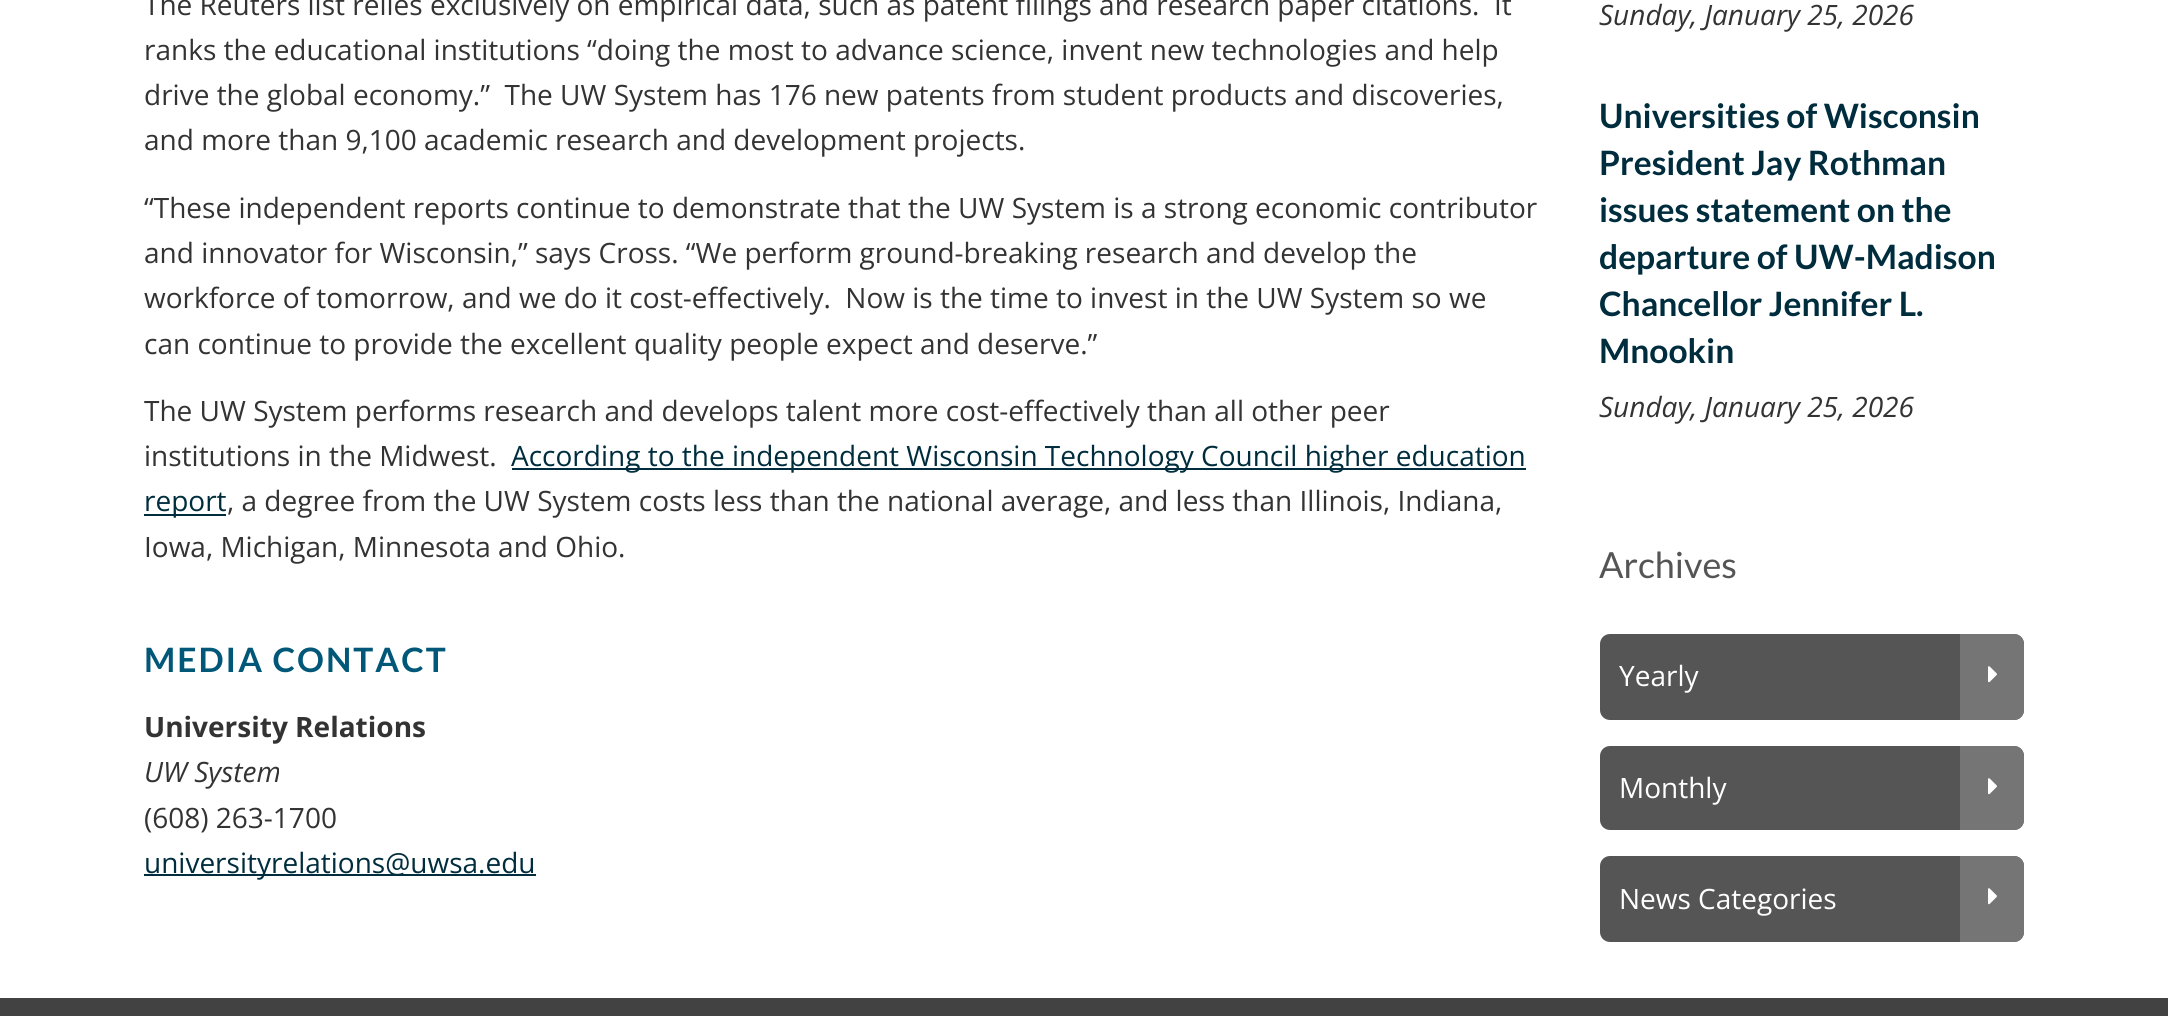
import math
import cairo

surface = cairo.ImageSurface(cairo.FORMAT_RGB24, 2168, 1016)
ctx = cairo.Context(surface)
options = cairo.FontOptions()
options.set_hint_metrics(cairo.HINT_METRICS_OFF)
options.set_hint_style(cairo.HINT_STYLE_NONE)
ctx.set_font_options(options)
ctx.set_miter_limit(4)


def spaced_text(x, y, s, letter, word):
    ctx.move_to(x, y)
    for ch in s:
        ctx.show_text(ch)
        ctx.rel_move_to(letter + word * (ch == ' '), 0)


def round_rect(x, y, w, h, r):
    ctx.new_sub_path()
    for i, (u, v) in enumerate([(x + w - r, y + h - r), (x + r, y + h - r), (x + r, y + r), (x + w - r, y + r)]):
        ctx.arc(u, v, r, i * math.pi / 2, (i + 1) * math.pi / 2)
    ctx.close_path()


def picture(path, x, y, w, h):
    ctx.save()
    ctx.set_source_surface(cairo.ImageSurface.create_from_png(path), x, y)
    ctx.rectangle(x, y, w, h)
    ctx.fill()
    ctx.restore()


ctx.set_source_rgb(1, 1, 1)
ctx.paint()
ctx.select_font_face("Open Sans")
ctx.set_font_size(28)
ctx.set_source_rgb(0.2, 0.2, 0.2)
ctx.move_to(144, 15)
ctx.show_text("The Reuters list relies exclusively on empirical data, such as patent filings and research paper citations.  It")
ctx.move_to(144, 60)
ctx.show_text("ranks the educational institutions “doing the most to advance science, invent new technologies and help")
ctx.move_to(144, 105)
ctx.show_text("drive the global economy.”  The UW System has 176 new patents from student products and discoveries,")
ctx.move_to(144, 150)
ctx.show_text("and more than 9,100 academic research and development projects.")
ctx.move_to(144, 218)
ctx.show_text("“These independent reports continue to demonstrate that the UW System is a strong economic contributor")
ctx.move_to(144, 263)
ctx.show_text("and innovator for Wisconsin,” says Cross. “We perform ground-breaking research and develop the")
ctx.move_to(144, 308)
ctx.show_text("workforce of tomorrow, and we do it cost-effectively.  Now is the time to invest in the UW System so we")
ctx.move_to(144, 354)
ctx.show_text("can continue to provide the excellent quality people expect and deserve.”")
ctx.move_to(144, 421)
ctx.show_text("The UW System performs research and develops talent more cost-effectively than all other peer")
ctx.move_to(144, 466)
ctx.show_text("institutions in the Midwest.")
ctx.set_source_rgb(0, 0.176, 0.239)
ctx.rectangle(512, 468, 1014, 2)
ctx.fill()
ctx.move_to(511, 466)
ctx.show_text("According to the independent Wisconsin Technology Council higher education")
ctx.rectangle(144, 514, 82, 2)
ctx.fill()
ctx.move_to(144, 511)
ctx.show_text("report")
ctx.set_source_rgb(0.2, 0.2, 0.2)
ctx.move_to(227, 511)
ctx.show_text(", a degree from the UW System costs less than the national average, and less than Illinois, Indiana,")
ctx.move_to(144, 557)
ctx.show_text("Iowa, Michigan, Minnesota and Ohio.")
ctx.select_font_face("Lato", cairo.FONT_SLANT_NORMAL, cairo.FONT_WEIGHT_BOLD)
ctx.set_font_size(33.6)
ctx.set_source_rgb(0, 0.341, 0.467)
spaced_text(144, 672, "MEDIA CONTACT", 2, 0)
ctx.select_font_face("Open Sans", cairo.FONT_SLANT_NORMAL, cairo.FONT_WEIGHT_BOLD)
ctx.set_font_size(28)
ctx.set_source_rgb(0.2, 0.2, 0.2)
ctx.move_to(144, 737)
ctx.show_text("University Relations")
ctx.select_font_face("Open Sans", cairo.FONT_SLANT_ITALIC)
ctx.move_to(144, 782)
ctx.show_text("UW System")
ctx.select_font_face("Open Sans")
ctx.move_to(144, 828)
ctx.show_text("(608) 263-1700")
ctx.set_source_rgb(0, 0.176, 0.239)
ctx.rectangle(144, 874, 392, 2)
ctx.fill()
ctx.move_to(144, 873)
ctx.show_text("universityrelations@uwsa.edu")
ctx.select_font_face("Open Sans", cairo.FONT_SLANT_ITALIC)
ctx.set_source_rgb(0.2, 0.2, 0.2)
ctx.move_to(1599, 25)
ctx.show_text("Sunday, January 25, 2026")
ctx.select_font_face("Lato", cairo.FONT_SLANT_NORMAL, cairo.FONT_WEIGHT_BOLD)
ctx.set_font_size(33.6)
ctx.set_source_rgb(0, 0.176, 0.239)
ctx.move_to(1599, 128)
ctx.show_text("Universities of Wisconsin")
ctx.move_to(1599, 175)
ctx.show_text("President Jay Rothman")
ctx.move_to(1599, 222)
ctx.show_text("issues statement on the")
ctx.move_to(1599, 269)
ctx.show_text("departure of UW-Madison")
ctx.move_to(1599, 316)
ctx.show_text("Chancellor Jennifer L.")
ctx.move_to(1599, 363)
ctx.show_text("Mnookin")
ctx.select_font_face("Open Sans", cairo.FONT_SLANT_ITALIC)
ctx.set_font_size(28)
ctx.set_source_rgb(0.2, 0.2, 0.2)
ctx.move_to(1599, 417)
ctx.show_text("Sunday, January 25, 2026")
ctx.select_font_face("Lato")
ctx.set_font_size(36)
ctx.set_source_rgb(0.333, 0.333, 0.333)
ctx.move_to(1599, 578)
ctx.show_text("Archives")
round_rect(1600, 634, 424, 86, 10)
ctx.fill()
ctx.select_font_face("Open Sans")
ctx.set_font_size(28)
ctx.set_source_rgb(1, 1, 1)
ctx.move_to(1619, 686)
ctx.show_text("Yearly")
ctx.set_source_rgb(0.459, 0.459, 0.459)
ctx.new_path()
ctx.move_to(1960, 634)
ctx.line_to(2014, 634)
ctx.curve_to(2019.5, 634, 2024, 638.5, 2024, 644)
ctx.line_to(2024, 710)
ctx.curve_to(2024, 715.5, 2019.5, 720, 2014, 720)
ctx.line_to(1960, 720)
ctx.close_path()
ctx.fill()
picture("img1.png", 1988, 666, 9, 17)
ctx.set_source_rgb(0.333, 0.333, 0.333)
round_rect(1600, 746, 424, 84, 10)
ctx.fill()
ctx.set_source_rgb(1, 1, 1)
ctx.move_to(1619, 798)
ctx.show_text("Monthly")
ctx.set_source_rgb(0.459, 0.459, 0.459)
ctx.new_path()
ctx.move_to(1960, 746)
ctx.line_to(2014, 746)
ctx.curve_to(2019.5, 746, 2024, 750.5, 2024, 756)
ctx.line_to(2024, 820)
ctx.curve_to(2024, 825.5, 2019.5, 830, 2014, 830)
ctx.line_to(1960, 830)
ctx.close_path()
ctx.fill()
picture("img1.png", 1988, 778, 9, 17)
ctx.set_source_rgb(0.333, 0.333, 0.333)
round_rect(1600, 856, 424, 86, 10)
ctx.fill()
ctx.set_source_rgb(1, 1, 1)
ctx.move_to(1619, 909)
ctx.show_text("News Categories")
ctx.set_source_rgb(0.459, 0.459, 0.459)
ctx.new_path()
ctx.move_to(1960, 856)
ctx.line_to(2014, 856)
ctx.curve_to(2019.5, 856, 2024, 860.5, 2024, 866)
ctx.line_to(2024, 932)
ctx.curve_to(2024, 937.5, 2019.5, 942, 2014, 942)
ctx.line_to(1960, 942)
ctx.close_path()
ctx.fill()
picture("img1.png", 1988, 888, 9, 17)
ctx.set_source_rgb(0.259, 0.259, 0.259)
ctx.rectangle(0, 998, 2168, 18)
ctx.fill()
surface.write_to_png("page.png")
